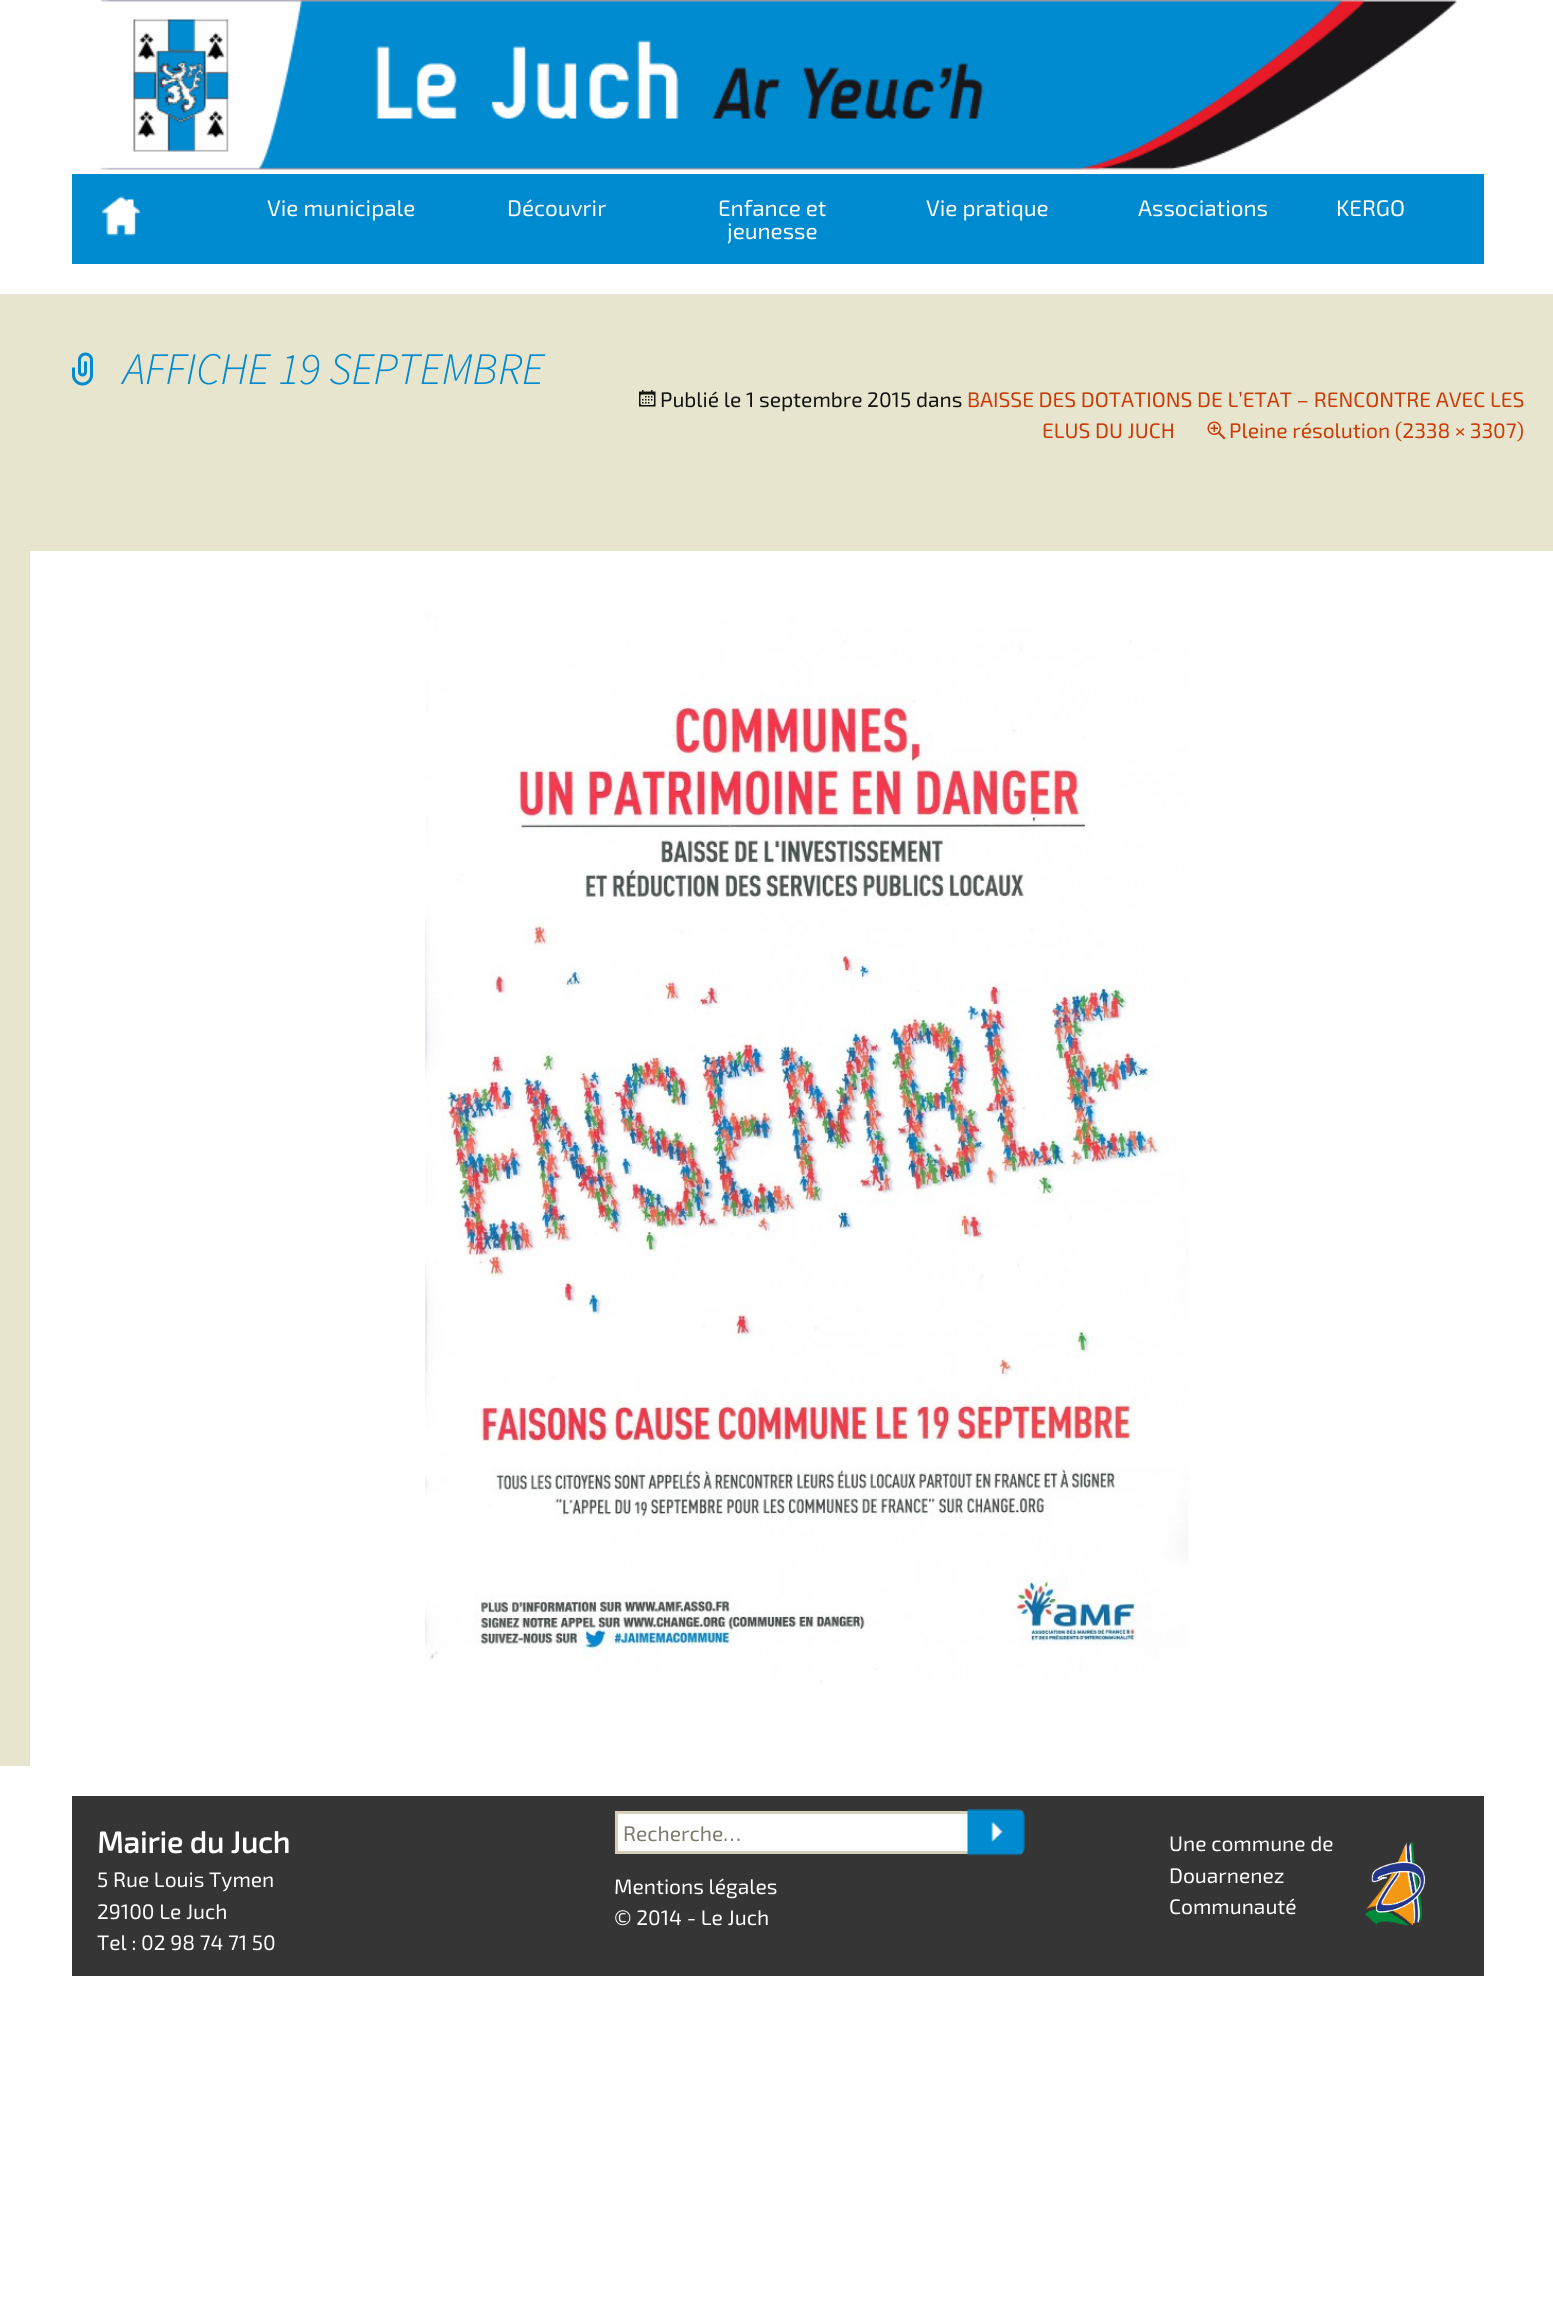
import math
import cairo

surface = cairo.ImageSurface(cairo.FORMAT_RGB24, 1553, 2319)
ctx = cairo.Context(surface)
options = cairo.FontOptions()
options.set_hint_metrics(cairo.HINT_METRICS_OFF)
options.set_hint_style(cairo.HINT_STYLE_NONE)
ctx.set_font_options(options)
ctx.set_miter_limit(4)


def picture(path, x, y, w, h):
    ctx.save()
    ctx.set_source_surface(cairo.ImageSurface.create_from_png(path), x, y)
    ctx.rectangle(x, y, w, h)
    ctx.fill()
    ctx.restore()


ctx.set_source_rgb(1, 1, 1)
ctx.paint()
picture("img1.png", 100, 0, 1357, 170)
ctx.set_source_rgb(0, 0.541, 0.812)
ctx.rectangle(72, 174, 1412, 90)
ctx.fill()
picture("img2.png", 102, 196, 39, 40)
ctx.select_font_face("Exo 2")
ctx.set_font_size(22.5)
ctx.set_source_rgb(1, 1, 1)
ctx.move_to(267, 216)
ctx.show_text("Vie municipale")
ctx.move_to(507, 216)
ctx.show_text("Découvrir")
ctx.move_to(718, 216)
ctx.show_text("Enfance et")
ctx.move_to(727, 239)
ctx.show_text("jeunesse")
ctx.move_to(926, 216)
ctx.show_text("Vie pratique")
ctx.move_to(1138, 216)
ctx.show_text("Associations")
ctx.move_to(1336, 216)
ctx.show_text("KERGO")
ctx.set_source_rgb(0.91, 0.898, 0.808)
ctx.rectangle(0, 294, 1553, 1472)
ctx.fill()
picture("img3.png", 72, 352, 21, 34)
ctx.select_font_face("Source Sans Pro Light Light", cairo.FONT_SLANT_ITALIC)
ctx.set_font_size(45)
ctx.set_source_rgb(0, 0.541, 0.812)
ctx.move_to(123, 384)
ctx.show_text("AFFICHE 19 SEPTEMBRE")
picture("img4.png", 639, 390, 17, 17)
ctx.select_font_face("Exo 2")
ctx.set_font_size(21)
ctx.set_source_rgb(0.078, 0.078, 0.071)
ctx.move_to(660, 407)
ctx.show_text("Publié le 1 septembre 2015 dans")
ctx.set_source_rgb(0.792, 0.235, 0.031)
ctx.move_to(967, 407)
ctx.show_text("BAISSE DES DOTATIONS DE L’ETAT – RENCONTRE AVEC LES")
ctx.move_to(1042, 438)
ctx.show_text("ELUS DU JUCH")
picture("img5.png", 1207, 421, 19, 19)
ctx.move_to(1229, 438)
ctx.show_text("Pleine résolution (2338 × 3307)")
ctx.set_source_rgb(1, 1, 1)
ctx.rectangle(30, 551, 1523, 1215)
ctx.fill()
picture("img6.png", 425, 613, 764, 1071)
ctx.set_source_rgb(0.208, 0.208, 0.208)
ctx.rectangle(72, 1796, 1412, 180)
ctx.fill()
ctx.select_font_face("Exo 2", cairo.FONT_SLANT_NORMAL, cairo.FONT_WEIGHT_BOLD)
ctx.set_font_size(30)
ctx.set_source_rgb(1, 1, 1)
ctx.move_to(97, 1853)
ctx.show_text("Mairie du Juch")
ctx.select_font_face("Exo 2")
ctx.set_font_size(21)
ctx.move_to(97, 1887)
ctx.show_text("5 Rue Louis Tymen")
ctx.move_to(97, 1919)
ctx.show_text("29100 Le Juch")
ctx.move_to(97, 1950)
ctx.show_text("Tel : 02 98 74 71 50")
ctx.rectangle(618, 1814, 350, 37)
ctx.fill()
ctx.rectangle(616.5, 1812.5, 402, 40)
ctx.set_source_rgb(0.831, 0.816, 0.729)
ctx.set_line_width(3)
ctx.stroke()
ctx.set_source_rgb(0.49, 0.482, 0.427)
ctx.move_to(623, 1841)
ctx.show_text("Recherche…")
picture("img7.png", 967, 1809, 58, 47)
ctx.set_source_rgb(1, 1, 1)
ctx.move_to(614, 1894)
ctx.show_text("Mentions légales")
ctx.move_to(614, 1925)
ctx.show_text("© 2014 - Le Juch")
ctx.move_to(1169, 1851)
ctx.show_text("Une commune de")
picture("img8.png", 1365, 1840, 60, 86)
ctx.move_to(1169, 1883)
ctx.show_text("Douarnenez")
ctx.move_to(1169, 1914)
ctx.show_text("Communauté")
surface.write_to_png("page.png")
